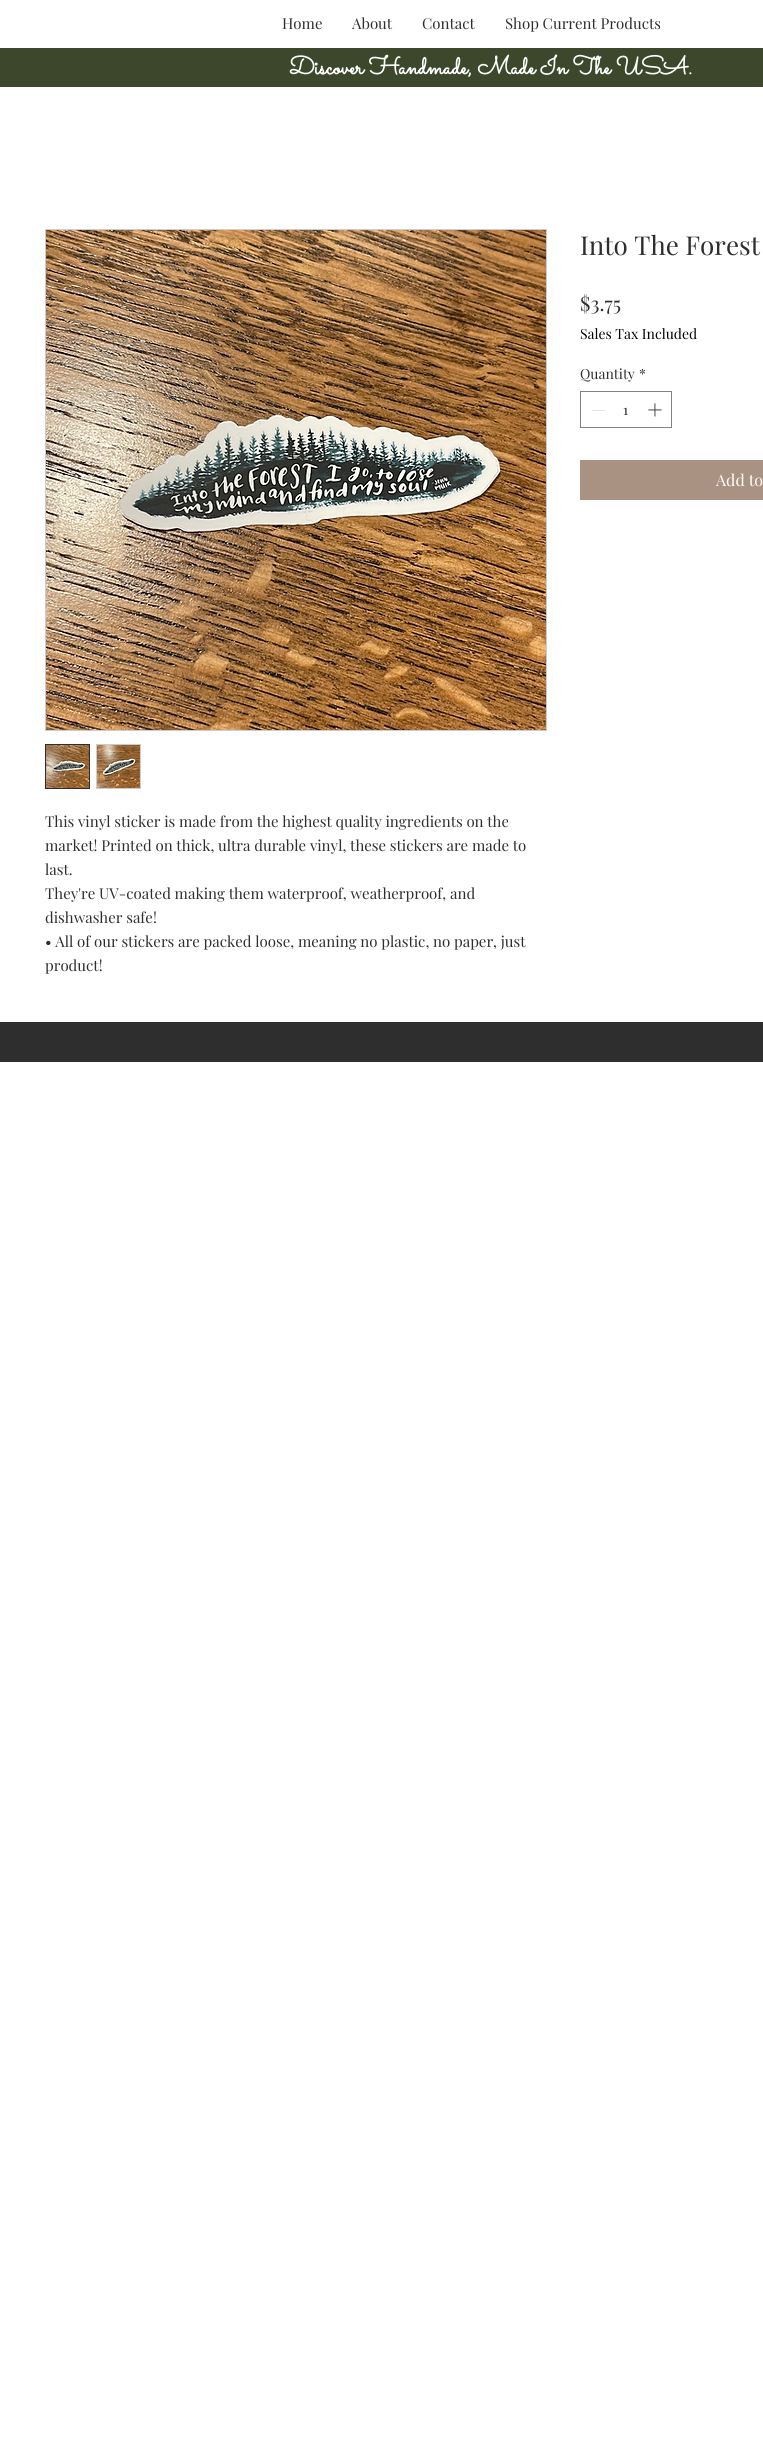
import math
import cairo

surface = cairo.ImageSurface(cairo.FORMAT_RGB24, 763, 2446)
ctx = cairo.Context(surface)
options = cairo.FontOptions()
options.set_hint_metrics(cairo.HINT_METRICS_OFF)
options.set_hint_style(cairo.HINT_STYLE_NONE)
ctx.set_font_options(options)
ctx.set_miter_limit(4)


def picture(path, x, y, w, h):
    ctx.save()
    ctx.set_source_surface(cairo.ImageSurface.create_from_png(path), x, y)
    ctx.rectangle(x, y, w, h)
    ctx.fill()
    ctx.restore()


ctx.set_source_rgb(1, 1, 1)
ctx.paint()
ctx.select_font_face("Playfair Display")
ctx.set_font_size(15)
ctx.set_source_rgb(0.184, 0.18, 0.18)
ctx.move_to(282, 29)
ctx.show_text("Home")
ctx.move_to(352, 29)
ctx.show_text("About")
ctx.move_to(422, 29)
ctx.show_text("Contact")
ctx.move_to(505, 29)
ctx.show_text("Shop Current Products")
ctx.set_source_rgb(0.239, 0.278, 0.173)
ctx.rectangle(0, 48, 763, 39)
ctx.fill()
ctx.select_font_face("Sacramento", cairo.FONT_SLANT_NORMAL, cairo.FONT_WEIGHT_BOLD)
ctx.set_font_size(25)
ctx.set_source_rgb(1, 1, 1)
ctx.move_to(289, 74)
ctx.show_text("Discover Handmade, Made In The USA.")
ctx.select_font_face("Playfair Display")
ctx.set_font_size(26)
ctx.set_source_rgb(0.184, 0.18, 0.18)
ctx.move_to(580, 255)
ctx.show_text("Into The Forest")
ctx.set_font_size(20)
ctx.move_to(580, 311)
ctx.show_text("$3.75")
ctx.set_font_size(14)
ctx.set_source_rgb(0, 0, 0)
ctx.move_to(580, 339)
ctx.show_text("Sales Tax Included")
ctx.set_source_rgb(0.184, 0.18, 0.18)
ctx.move_to(580, 379)
ctx.show_text("Quantity")
ctx.move_to(639, 379)
ctx.show_text("*")
ctx.rectangle(580.5, 391.5, 91, 36)
ctx.set_source_rgb(0.51, 0.51, 0.51)
ctx.set_line_width(1)
ctx.stroke()
ctx.set_source_rgb(0.89, 0.89, 0.89)
ctx.rectangle(592, 410, 13, 1)
ctx.fill()
ctx.set_source_rgb(0.184, 0.18, 0.18)
ctx.move_to(623, 415)
ctx.show_text("1")
picture("img1.png", 648, 403, 14, 14)
ctx.set_source_rgb(0.667, 0.573, 0.514)
ctx.rectangle(580, 460, 183, 40)
ctx.fill()
ctx.set_font_size(16)
ctx.set_source_rgb(1, 1, 1)
ctx.move_to(716, 486)
ctx.show_text("Add to")
ctx.rectangle(45.5, 229.5, 501, 501)
ctx.set_source_rgb(0.8, 0.8, 0.8)
ctx.stroke()
picture("img2.png", 46, 230, 500, 500)
ctx.rectangle(45.5, 744.5, 44, 44)
ctx.set_source_rgb(0.184, 0.18, 0.18)
ctx.stroke()
picture("img3.png", 46, 745, 43, 43)
ctx.set_source_rgb(0.8, 0.8, 0.8)
ctx.rectangle(96, 744, 45, 45)
ctx.fill()
picture("img4.png", 97, 745, 43, 43)
ctx.set_font_size(15)
ctx.set_source_rgb(0.184, 0.18, 0.18)
ctx.move_to(45, 827)
ctx.show_text("This vinyl sticker is made from the highest quality ingredients on the")
ctx.move_to(45, 851)
ctx.show_text("market! Printed on thick, ultra durable vinyl, these stickers are made to")
ctx.move_to(45, 875)
ctx.show_text("last.")
ctx.move_to(45, 899)
ctx.show_text("They're UV-coated making them waterproof, weatherproof, and")
ctx.move_to(45, 923)
ctx.show_text("dishwasher safe!")
ctx.move_to(45, 947)
ctx.show_text("• All of our stickers are packed loose, meaning no plastic, no paper, just")
ctx.move_to(45, 971)
ctx.show_text("product!")
ctx.rectangle(0, 1022, 763, 40)
ctx.fill()
surface.write_to_png("page.png")
